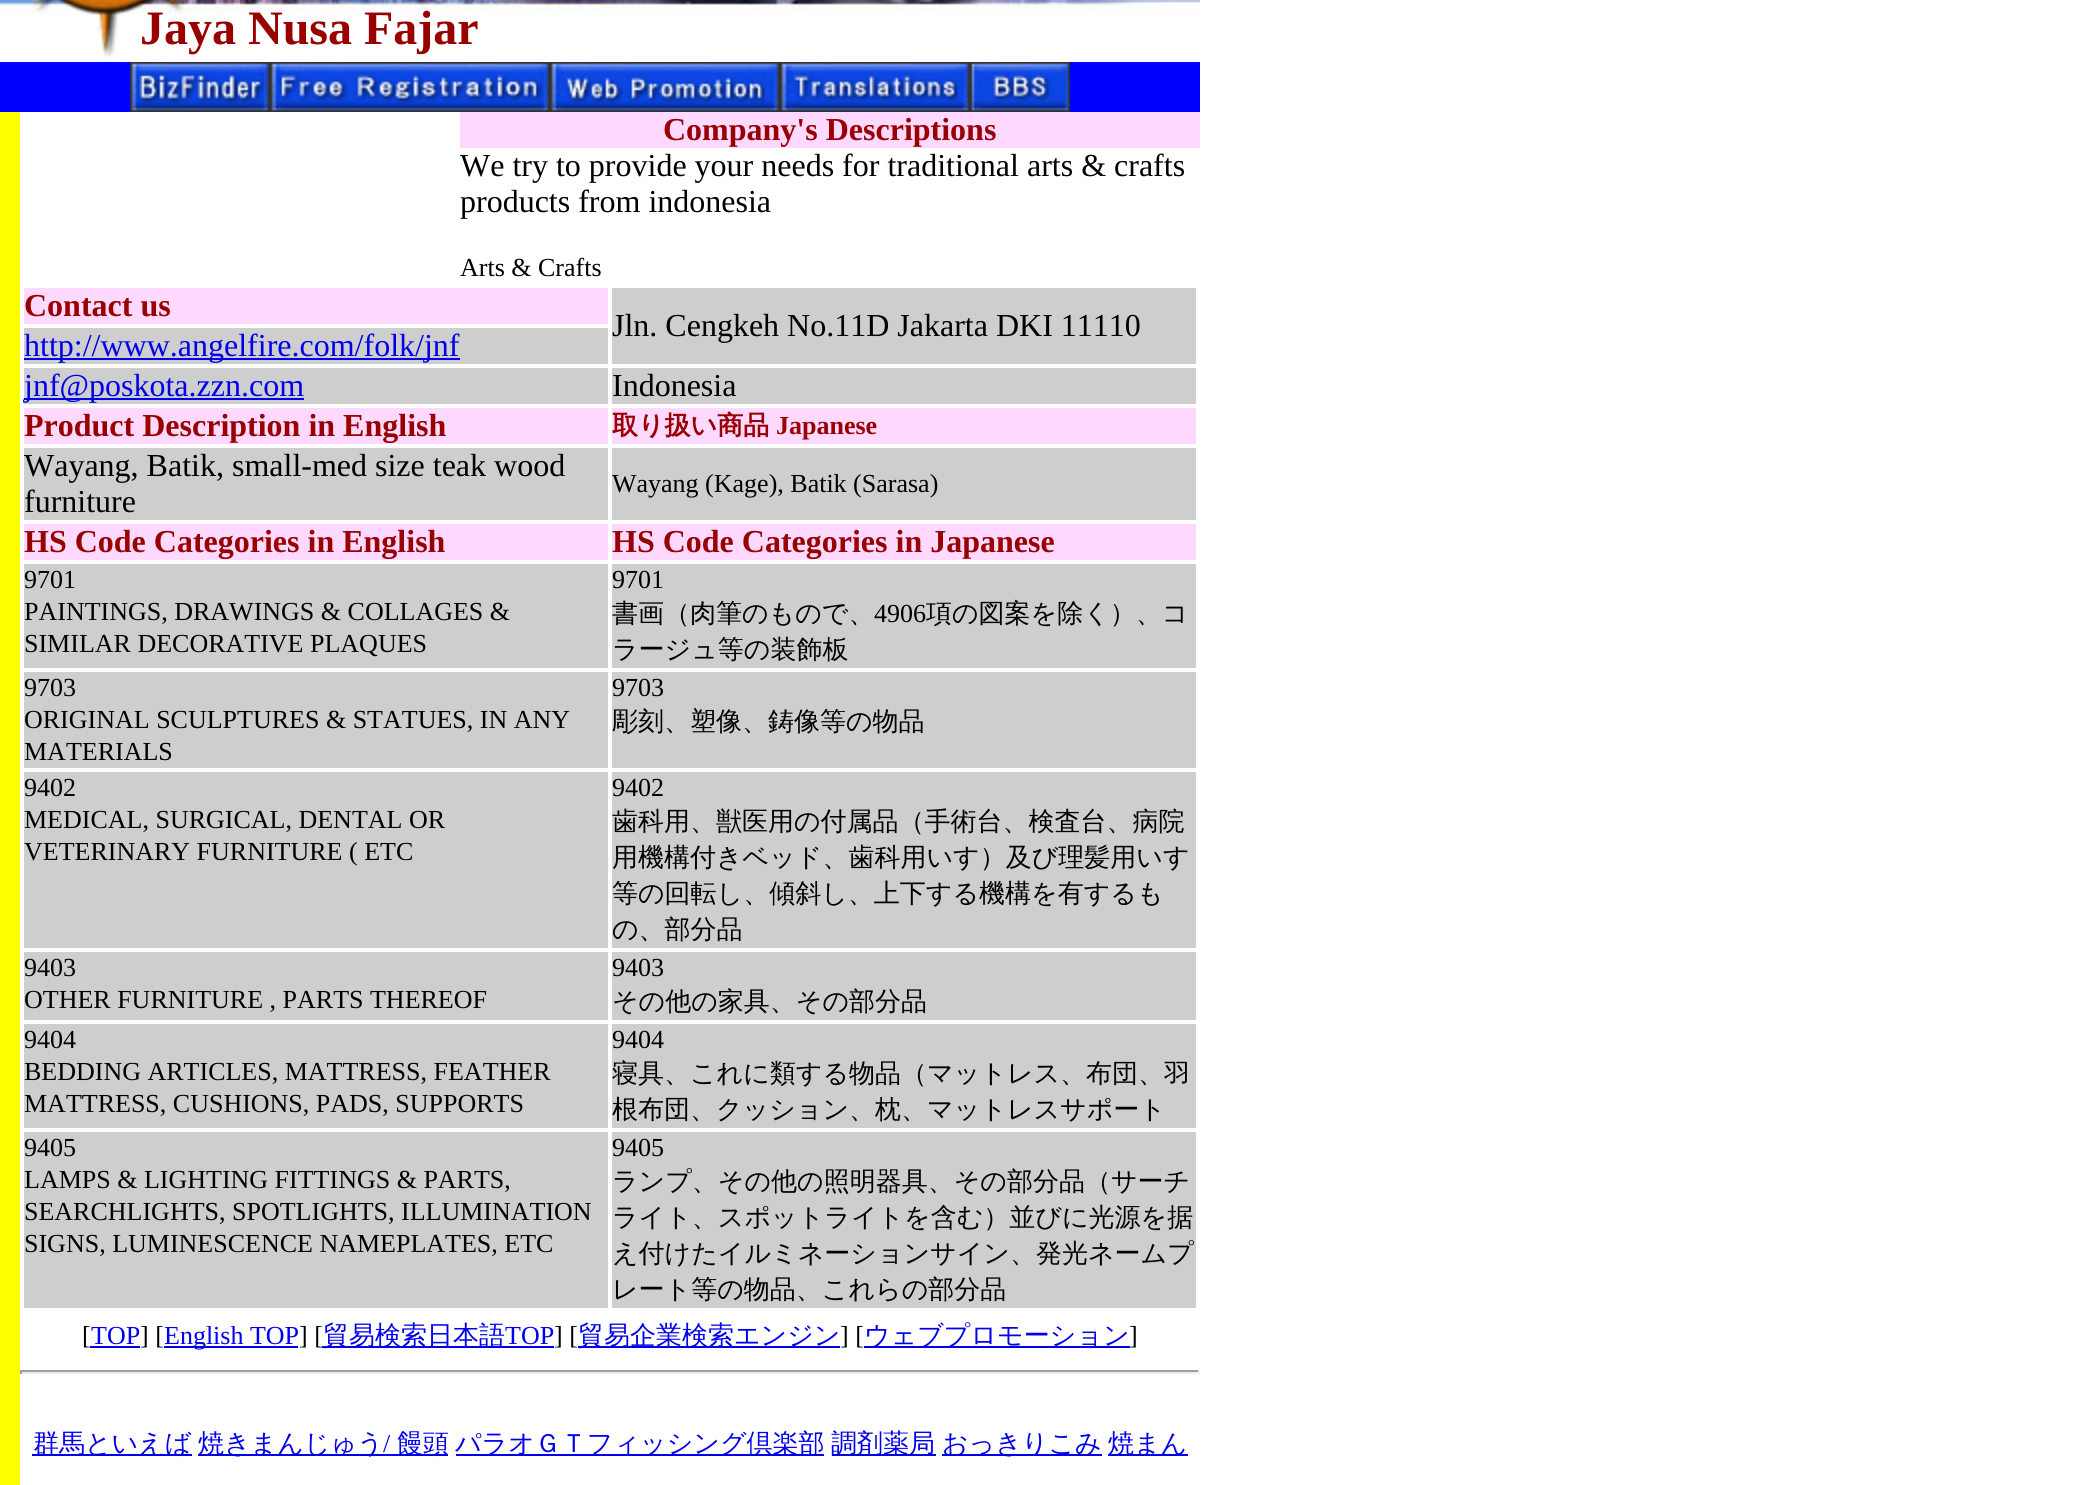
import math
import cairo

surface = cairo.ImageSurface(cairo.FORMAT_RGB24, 2077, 1485)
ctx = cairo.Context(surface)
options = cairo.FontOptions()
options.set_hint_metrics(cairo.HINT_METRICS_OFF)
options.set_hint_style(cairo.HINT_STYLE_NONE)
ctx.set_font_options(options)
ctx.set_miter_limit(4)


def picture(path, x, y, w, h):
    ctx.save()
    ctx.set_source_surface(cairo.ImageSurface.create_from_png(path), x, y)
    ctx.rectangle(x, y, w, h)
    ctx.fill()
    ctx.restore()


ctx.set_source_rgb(1, 1, 1)
ctx.paint()
picture("img1.png", 0, 0, 120, 62)
picture("img2.png", 120, 0, 120, 15)
picture("img3.png", 240, 0, 120, 14)
picture("img4.png", 360, 0, 120, 14)
picture("img5.png", 480, 0, 120, 14)
picture("img6.png", 600, 0, 120, 14)
picture("img7.png", 720, 0, 120, 14)
picture("img8.png", 840, 0, 120, 14)
picture("img9.png", 960, 0, 120, 14)
picture("img10.png", 1080, 0, 120, 14)
ctx.select_font_face("Liberation Serif", cairo.FONT_SLANT_NORMAL, cairo.FONT_WEIGHT_BOLD)
ctx.set_font_size(48)
ctx.set_source_rgb(0.6, 0, 0)
ctx.move_to(140, 44)
ctx.show_text("Jaya Nusa Fajar")
ctx.set_source_rgb(0, 0, 1)
ctx.rectangle(0, 62, 1200, 50)
ctx.fill()
picture("img11.png", 130, 62, 140, 50)
picture("img12.png", 270, 62, 280, 50)
picture("img13.png", 550, 62, 230, 50)
picture("img14.png", 780, 62, 190, 50)
picture("img15.png", 970, 62, 100, 50)
ctx.set_source_rgb(1, 1, 0)
ctx.rectangle(0, 112, 20, 1373)
ctx.fill()
ctx.set_source_rgb(1, 0.851, 1)
ctx.rectangle(460, 112, 740, 36)
ctx.fill()
ctx.set_font_size(32)
ctx.set_source_rgb(0.6, 0, 0)
ctx.move_to(663, 140)
ctx.show_text("Company's Descriptions")
ctx.select_font_face("Liberation Serif")
ctx.set_source_rgb(0, 0, 0)
ctx.move_to(460, 176)
ctx.show_text("We try to provide your needs for traditional arts & crafts")
ctx.move_to(460, 212)
ctx.show_text("products from indonesia")
ctx.set_font_size(26)
ctx.move_to(460, 276)
ctx.show_text("Arts & Crafts")
ctx.set_source_rgb(1, 0.851, 1)
ctx.rectangle(24, 288, 584, 36)
ctx.fill()
ctx.select_font_face("Liberation Serif", cairo.FONT_SLANT_NORMAL, cairo.FONT_WEIGHT_BOLD)
ctx.set_font_size(32)
ctx.set_source_rgb(0.6, 0, 0)
ctx.move_to(24, 316)
ctx.show_text("Contact us")
ctx.set_source_rgb(0.808, 0.808, 0.808)
ctx.rectangle(612, 288, 584, 76)
ctx.fill()
ctx.select_font_face("Liberation Serif")
ctx.set_source_rgb(0, 0, 0)
ctx.move_to(612, 336)
ctx.show_text("Jln. Cengkeh No.11D Jakarta DKI 11110")
ctx.set_source_rgb(0.808, 0.808, 0.808)
ctx.rectangle(24, 328, 584, 36)
ctx.fill()
ctx.set_source_rgb(0, 0, 0.933)
ctx.rectangle(24, 358, 436, 2)
ctx.fill()
ctx.move_to(24, 356)
ctx.show_text("http://www.angelfire.com/folk/jnf")
ctx.set_source_rgb(0.808, 0.808, 0.808)
ctx.rectangle(24, 368, 584, 36)
ctx.fill()
ctx.set_source_rgb(0, 0, 0.933)
ctx.rectangle(24, 398, 280, 2)
ctx.fill()
ctx.move_to(24, 396)
ctx.show_text("jnf@poskota.zzn.com")
ctx.set_source_rgb(0.808, 0.808, 0.808)
ctx.rectangle(612, 368, 584, 36)
ctx.fill()
ctx.set_source_rgb(0, 0, 0)
ctx.move_to(612, 396)
ctx.show_text("Indonesia")
ctx.set_source_rgb(1, 0.851, 1)
ctx.rectangle(24, 408, 584, 36)
ctx.fill()
ctx.select_font_face("Liberation Serif", cairo.FONT_SLANT_NORMAL, cairo.FONT_WEIGHT_BOLD)
ctx.set_source_rgb(0.6, 0, 0)
ctx.move_to(24, 436)
ctx.show_text("Product Description in English")
ctx.set_source_rgb(1, 0.851, 1)
ctx.rectangle(612, 408, 584, 36)
ctx.fill()
ctx.select_font_face("WenQuanYi Zen Hei", cairo.FONT_SLANT_NORMAL, cairo.FONT_WEIGHT_BOLD)
ctx.set_font_size(26)
ctx.set_source_rgb(0.6, 0, 0)
ctx.move_to(612, 434)
ctx.show_text("取り扱い商品")
ctx.select_font_face("Liberation Serif", cairo.FONT_SLANT_NORMAL, cairo.FONT_WEIGHT_BOLD)
ctx.move_to(776, 434)
ctx.show_text("Japanese")
ctx.set_source_rgb(0.808, 0.808, 0.808)
ctx.rectangle(24, 448, 584, 72)
ctx.fill()
ctx.select_font_face("Liberation Serif")
ctx.set_font_size(32)
ctx.set_source_rgb(0, 0, 0)
ctx.move_to(24, 476)
ctx.show_text("Wayang, Batik, small-med size teak wood")
ctx.move_to(24, 512)
ctx.show_text("furniture")
ctx.set_source_rgb(0.808, 0.808, 0.808)
ctx.rectangle(612, 448, 584, 72)
ctx.fill()
ctx.set_font_size(26)
ctx.set_source_rgb(0, 0, 0)
ctx.move_to(612, 492)
ctx.show_text("Wayang (Kage), Batik (Sarasa)")
ctx.set_source_rgb(1, 0.851, 1)
ctx.rectangle(24, 524, 584, 36)
ctx.fill()
ctx.select_font_face("Liberation Serif", cairo.FONT_SLANT_NORMAL, cairo.FONT_WEIGHT_BOLD)
ctx.set_font_size(32)
ctx.set_source_rgb(0.6, 0, 0)
ctx.move_to(24, 552)
ctx.show_text("HS Code Categories in English")
ctx.set_source_rgb(1, 0.851, 1)
ctx.rectangle(612, 524, 584, 36)
ctx.fill()
ctx.set_source_rgb(0.6, 0, 0)
ctx.move_to(612, 552)
ctx.show_text("HS Code Categories in Japanese")
ctx.set_source_rgb(0.808, 0.808, 0.808)
ctx.rectangle(24, 564, 584, 104)
ctx.fill()
ctx.select_font_face("Liberation Serif")
ctx.set_font_size(26)
ctx.set_source_rgb(0, 0, 0)
ctx.move_to(24, 588)
ctx.show_text("9701")
ctx.move_to(24, 620)
ctx.show_text("PAINTINGS, DRAWINGS & COLLAGES &")
ctx.move_to(24, 652)
ctx.show_text("SIMILAR DECORATIVE PLAQUES")
ctx.set_source_rgb(0.808, 0.808, 0.808)
ctx.rectangle(612, 564, 584, 104)
ctx.fill()
ctx.set_source_rgb(0, 0, 0)
ctx.move_to(612, 588)
ctx.show_text("9701")
ctx.select_font_face("WenQuanYi Zen Hei Medium")
ctx.move_to(612, 622)
ctx.show_text("書画（肉筆のもので、")
ctx.select_font_face("Liberation Serif")
ctx.move_to(874, 622)
ctx.show_text("4906")
ctx.select_font_face("WenQuanYi Zen Hei Medium")
ctx.move_to(926, 622)
ctx.show_text("項の図案を除く）、コ")
ctx.move_to(612, 658)
ctx.show_text("ラージュ等の装飾板")
ctx.set_source_rgb(0.808, 0.808, 0.808)
ctx.rectangle(24, 672, 584, 96)
ctx.fill()
ctx.select_font_face("Liberation Serif")
ctx.set_source_rgb(0, 0, 0)
ctx.move_to(24, 696)
ctx.show_text("9703")
ctx.move_to(24, 728)
ctx.show_text("ORIGINAL SCULPTURES & STATUES, IN ANY")
ctx.move_to(24, 760)
ctx.show_text("MATERIALS")
ctx.set_source_rgb(0.808, 0.808, 0.808)
ctx.rectangle(612, 672, 584, 96)
ctx.fill()
ctx.set_source_rgb(0, 0, 0)
ctx.move_to(612, 696)
ctx.show_text("9703")
ctx.select_font_face("WenQuanYi Zen Hei Medium")
ctx.move_to(612, 730)
ctx.show_text("彫刻、塑像、鋳像等の物品")
ctx.set_source_rgb(0.808, 0.808, 0.808)
ctx.rectangle(24, 772, 584, 176)
ctx.fill()
ctx.select_font_face("Liberation Serif")
ctx.set_source_rgb(0, 0, 0)
ctx.move_to(24, 796)
ctx.show_text("9402")
ctx.move_to(24, 828)
ctx.show_text("MEDICAL, SURGICAL, DENTAL OR")
ctx.move_to(24, 860)
ctx.show_text("VETERINARY FURNITURE ( ETC")
ctx.set_source_rgb(0.808, 0.808, 0.808)
ctx.rectangle(612, 772, 584, 176)
ctx.fill()
ctx.set_source_rgb(0, 0, 0)
ctx.move_to(612, 796)
ctx.show_text("9402")
ctx.select_font_face("WenQuanYi Zen Hei Medium")
ctx.move_to(612, 830)
ctx.show_text("歯科用、獣医用の付属品（手術台、検査台、病院")
ctx.move_to(612, 866)
ctx.show_text("用機構付きベッド、歯科用いす）及び理髪用いす")
ctx.move_to(612, 902)
ctx.show_text("等の回転し、傾斜し、上下する機構を有するも")
ctx.move_to(612, 938)
ctx.show_text("の、部分品")
ctx.set_source_rgb(0.808, 0.808, 0.808)
ctx.rectangle(24, 952, 584, 68)
ctx.fill()
ctx.select_font_face("Liberation Serif")
ctx.set_source_rgb(0, 0, 0)
ctx.move_to(24, 976)
ctx.show_text("9403")
ctx.move_to(24, 1008)
ctx.show_text("OTHER FURNITURE , PARTS THEREOF")
ctx.set_source_rgb(0.808, 0.808, 0.808)
ctx.rectangle(612, 952, 584, 68)
ctx.fill()
ctx.set_source_rgb(0, 0, 0)
ctx.move_to(612, 976)
ctx.show_text("9403")
ctx.select_font_face("WenQuanYi Zen Hei Medium")
ctx.move_to(612, 1010)
ctx.show_text("その他の家具、その部分品")
ctx.set_source_rgb(0.808, 0.808, 0.808)
ctx.rectangle(24, 1024, 584, 104)
ctx.fill()
ctx.select_font_face("Liberation Serif")
ctx.set_source_rgb(0, 0, 0)
ctx.move_to(24, 1048)
ctx.show_text("9404")
ctx.move_to(24, 1080)
ctx.show_text("BEDDING ARTICLES, MATTRESS, FEATHER")
ctx.move_to(24, 1112)
ctx.show_text("MATTRESS, CUSHIONS, PADS, SUPPORTS")
ctx.set_source_rgb(0.808, 0.808, 0.808)
ctx.rectangle(612, 1024, 584, 104)
ctx.fill()
ctx.set_source_rgb(0, 0, 0)
ctx.move_to(612, 1048)
ctx.show_text("9404")
ctx.select_font_face("WenQuanYi Zen Hei Medium")
ctx.move_to(612, 1082)
ctx.show_text("寝具、これに類する物品（マットレス、布団、羽")
ctx.move_to(612, 1118)
ctx.show_text("根布団、クッション、枕、マットレスサポート")
ctx.set_source_rgb(0.808, 0.808, 0.808)
ctx.rectangle(24, 1132, 584, 176)
ctx.fill()
ctx.select_font_face("Liberation Serif")
ctx.set_source_rgb(0, 0, 0)
ctx.move_to(24, 1156)
ctx.show_text("9405")
ctx.move_to(24, 1188)
ctx.show_text("LAMPS & LIGHTING FITTINGS & PARTS,")
ctx.move_to(24, 1220)
ctx.show_text("SEARCHLIGHTS, SPOTLIGHTS, ILLUMINATION")
ctx.move_to(24, 1252)
ctx.show_text("SIGNS, LUMINESCENCE NAMEPLATES, ETC")
ctx.set_source_rgb(0.808, 0.808, 0.808)
ctx.rectangle(612, 1132, 584, 176)
ctx.fill()
ctx.set_source_rgb(0, 0, 0)
ctx.move_to(612, 1156)
ctx.show_text("9405")
ctx.select_font_face("WenQuanYi Zen Hei Medium")
ctx.move_to(612, 1190)
ctx.show_text("ランプ、その他の照明器具、その部分品（サーチ")
ctx.move_to(612, 1226)
ctx.show_text("ライト、スポットライトを含む）並びに光源を据")
ctx.move_to(612, 1262)
ctx.show_text("え付けたイルミネーションサイン、発光ネームプ")
ctx.move_to(612, 1298)
ctx.show_text("レート等の物品、これらの部分品")
ctx.select_font_face("Liberation Serif")
ctx.move_to(82, 1344)
ctx.show_text("[")
ctx.set_source_rgb(0, 0, 0.933)
ctx.rectangle(90, 1346, 50, 2)
ctx.fill()
ctx.move_to(91, 1344)
ctx.show_text("TOP")
ctx.set_source_rgb(0, 0, 0)
ctx.move_to(140, 1344)
ctx.show_text("] [")
ctx.set_source_rgb(0, 0, 0.933)
ctx.rectangle(164, 1346, 134, 2)
ctx.fill()
ctx.move_to(164, 1344)
ctx.show_text("English TOP")
ctx.set_source_rgb(0, 0, 0)
ctx.move_to(299, 1344)
ctx.show_text("] [")
ctx.set_source_rgb(0, 0, 0.933)
ctx.rectangle(322, 1346, 232, 2)
ctx.fill()
ctx.select_font_face("WenQuanYi Zen Hei Medium")
ctx.move_to(323, 1344)
ctx.show_text("貿易検索日本語")
ctx.select_font_face("Liberation Serif")
ctx.move_to(505, 1344)
ctx.show_text("TOP")
ctx.set_source_rgb(0, 0, 0)
ctx.move_to(554, 1344)
ctx.show_text("] [")
ctx.set_source_rgb(0, 0, 0.933)
ctx.rectangle(578, 1346, 262, 2)
ctx.fill()
ctx.select_font_face("WenQuanYi Zen Hei Medium")
ctx.move_to(578, 1344)
ctx.show_text("貿易企業検索エンジン")
ctx.select_font_face("Liberation Serif")
ctx.set_source_rgb(0, 0, 0)
ctx.move_to(840, 1344)
ctx.show_text("] [")
ctx.set_source_rgb(0, 0, 0.933)
ctx.rectangle(864, 1346, 266, 2)
ctx.fill()
ctx.select_font_face("WenQuanYi Zen Hei Medium")
ctx.move_to(864, 1344)
ctx.show_text("ウェブプロモーション")
ctx.select_font_face("Liberation Serif")
ctx.set_source_rgb(0, 0, 0)
ctx.move_to(1129, 1344)
ctx.show_text("]")
ctx.set_source_rgb(0.624, 0.624, 0.624)
ctx.rectangle(20, 1370, 1180, 2)
ctx.fill()
ctx.set_source_rgb(0.933, 0.933, 0.933)
ctx.rectangle(1198, 1370, 2, 4)
ctx.fill()
ctx.rectangle(20, 1372, 1180, 2)
ctx.fill()
ctx.set_source_rgb(0.624, 0.624, 0.624)
ctx.rectangle(20, 1370, 2, 4)
ctx.fill()
ctx.set_source_rgb(0, 0, 0.933)
ctx.rectangle(32, 1454, 160, 2)
ctx.fill()
ctx.select_font_face("WenQuanYi Zen Hei Medium")
ctx.move_to(33, 1452)
ctx.show_text("群馬といえば")
ctx.rectangle(198, 1454, 250, 2)
ctx.fill()
ctx.move_to(198, 1452)
ctx.show_text("焼きまんじゅう")
ctx.select_font_face("Liberation Serif")
ctx.move_to(383, 1452)
ctx.show_text("/")
ctx.select_font_face("WenQuanYi Zen Hei Medium")
ctx.move_to(397, 1452)
ctx.show_text("饅頭")
ctx.rectangle(456, 1454, 368, 2)
ctx.fill()
ctx.move_to(455, 1452)
ctx.show_text("パラオＧＴフィッシング倶楽部")
ctx.rectangle(832, 1454, 104, 2)
ctx.fill()
ctx.move_to(831, 1452)
ctx.show_text("調剤薬局")
ctx.rectangle(942, 1454, 160, 2)
ctx.fill()
ctx.move_to(942, 1452)
ctx.show_text("おっきりこみ")
ctx.rectangle(1108, 1454, 80, 2)
ctx.fill()
ctx.move_to(1108, 1452)
ctx.show_text("焼まん")
surface.write_to_png("page.png")
